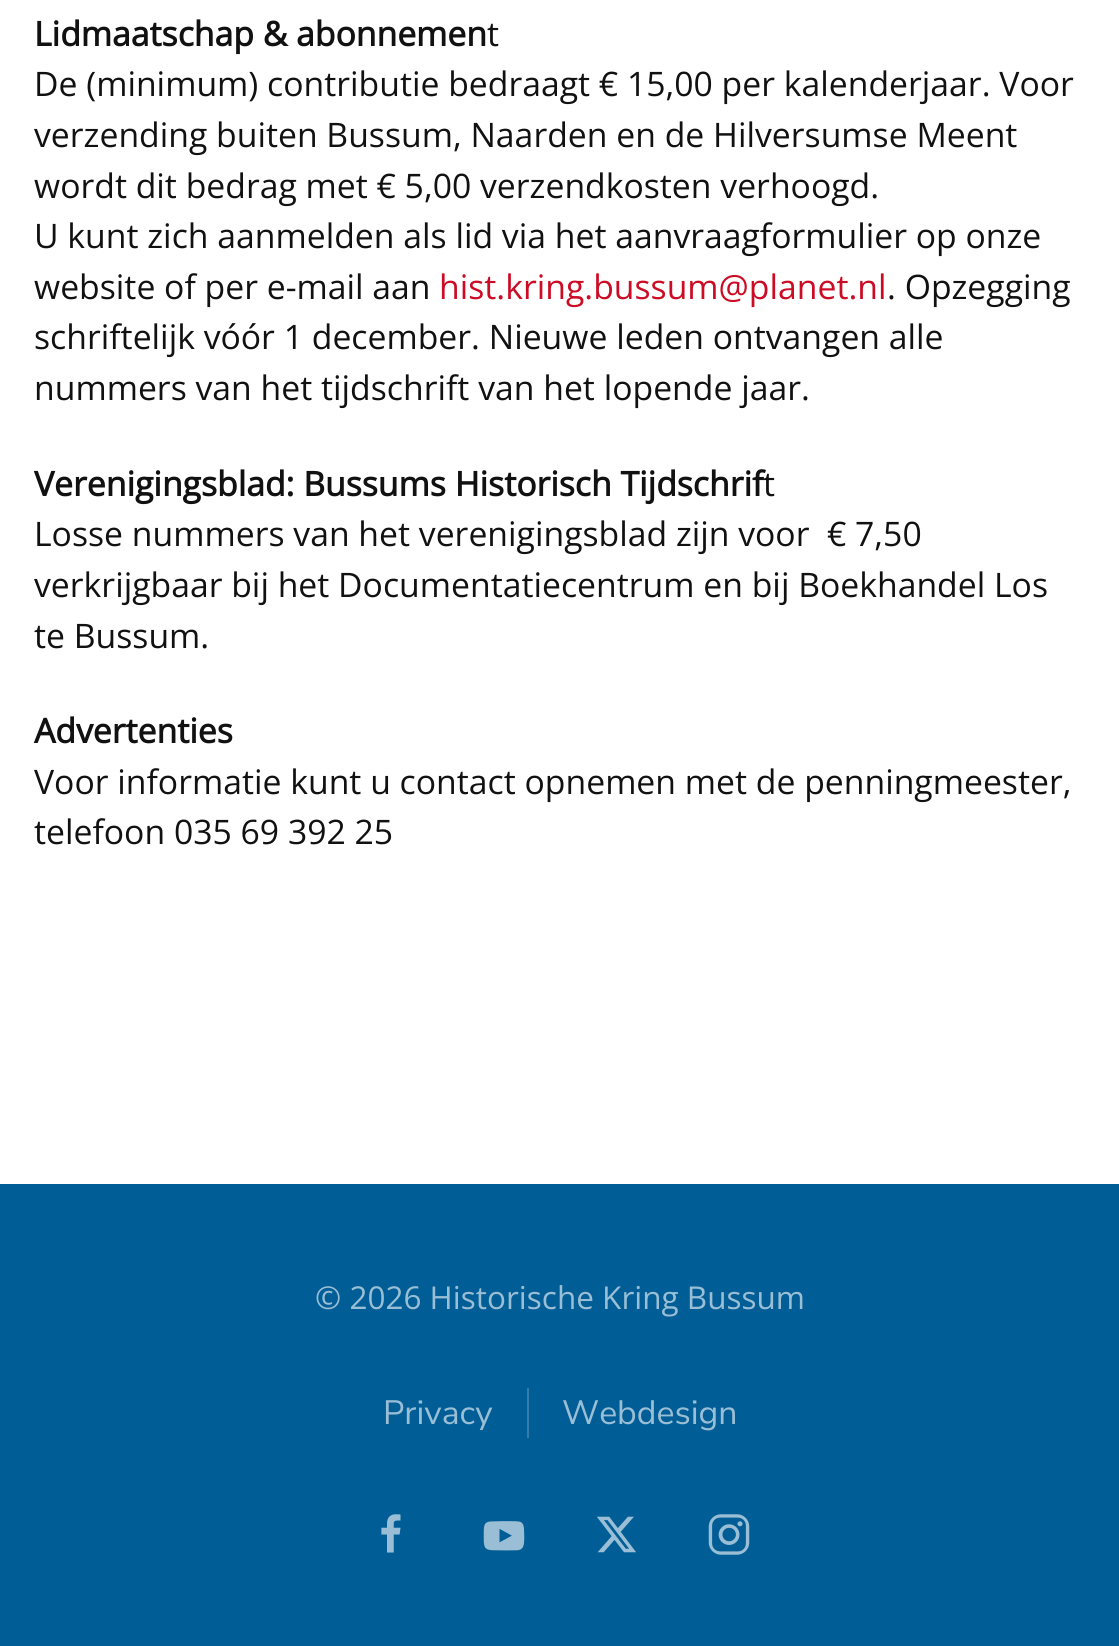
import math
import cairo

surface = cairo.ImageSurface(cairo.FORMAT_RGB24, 1119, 1646)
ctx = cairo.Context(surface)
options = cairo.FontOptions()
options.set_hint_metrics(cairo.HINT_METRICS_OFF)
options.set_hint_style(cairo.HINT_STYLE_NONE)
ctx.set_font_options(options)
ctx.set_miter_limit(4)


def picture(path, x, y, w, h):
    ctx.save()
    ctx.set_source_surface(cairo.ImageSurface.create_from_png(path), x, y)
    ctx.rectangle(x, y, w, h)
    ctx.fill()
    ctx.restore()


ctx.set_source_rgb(1, 1, 1)
ctx.paint()
ctx.select_font_face("Open Sans", cairo.FONT_SLANT_NORMAL, cairo.FONT_WEIGHT_BOLD)
ctx.set_font_size(33.75)
ctx.set_source_rgb(0.067, 0.067, 0.067)
ctx.move_to(34, 46)
ctx.show_text("Lidmaatschap & abonnemen")
ctx.select_font_face("Open Sans")
ctx.move_to(487, 46)
ctx.show_text("t")
ctx.move_to(34, 96)
ctx.show_text("De (minimum) contributie bedraagt € 15,00 per kalenderjaar. Voor")
ctx.move_to(34, 147)
ctx.show_text("verzending buiten Bussum, Naarden en de Hilversumse Meent")
ctx.move_to(34, 198)
ctx.show_text("wordt dit bedrag met € 5,00 verzendkosten verhoogd.")
ctx.move_to(34, 248)
ctx.show_text("U kunt zich aanmelden als lid via het aanvraagformulier op onze")
ctx.move_to(34, 299)
ctx.show_text("website of per e-mail aan")
ctx.set_source_rgb(0.8, 0.043, 0.141)
ctx.move_to(439, 299)
ctx.show_text("hist.kring.bussum@planet.nl")
ctx.set_source_rgb(0.067, 0.067, 0.067)
ctx.move_to(887, 299)
ctx.show_text(". Opzegging")
ctx.move_to(34, 349)
ctx.show_text("schriftelijk vóór 1 december. Nieuwe leden ontvangen alle")
ctx.move_to(34, 400)
ctx.show_text("nummers van het tijdschrift van het lopende jaar.")
ctx.select_font_face("Open Sans", cairo.FONT_SLANT_NORMAL, cairo.FONT_WEIGHT_BOLD)
ctx.move_to(34, 496)
ctx.show_text("Verenigingsblad: Bussums Historisch Tijdschrif")
ctx.select_font_face("Open Sans")
ctx.move_to(763, 496)
ctx.show_text("t")
ctx.move_to(34, 546)
ctx.show_text("Losse nummers van het verenigingsblad zijn voor")
ctx.move_to(827, 546)
ctx.show_text("€ 7,50")
ctx.move_to(34, 597)
ctx.show_text("verkrijgbaar bij het Documentatiecentrum en bij Boekhandel Los")
ctx.move_to(34, 648)
ctx.show_text("te Bussum.")
ctx.select_font_face("Open Sans", cairo.FONT_SLANT_NORMAL, cairo.FONT_WEIGHT_BOLD)
ctx.move_to(34, 743)
ctx.show_text("Advertenties")
ctx.select_font_face("Open Sans")
ctx.move_to(34, 794)
ctx.show_text("Voor informatie kunt u contact opnemen met de penningmeester,")
ctx.move_to(34, 844)
ctx.show_text("telefoon 035 69 392 25")
ctx.set_source_rgb(0, 0.365, 0.584)
ctx.rectangle(0, 1184, 1119, 462)
ctx.fill()
ctx.set_font_size(31.5)
ctx.set_source_rgb(0.6, 0.745, 0.835)
ctx.move_to(315, 1309)
ctx.show_text("© 2026 Historische Kring Bussum")
ctx.select_font_face("Nunito Sans ExtraLight")
ctx.set_font_size(33.75)
ctx.move_to(383, 1424)
ctx.show_text("Privacy")
ctx.set_source_rgb(0.2, 0.49, 0.667)
ctx.rectangle(527, 1388, 2, 50)
ctx.fill()
ctx.set_source_rgb(0.6, 0.745, 0.835)
ctx.move_to(562, 1424)
ctx.show_text("Webdesign")
picture("img1.png", 381, 1514, 20, 39)
picture("img2.png", 483, 1521, 42, 30)
picture("img3.png", 597, 1516, 39, 37)
picture("img4.png", 708, 1514, 42, 41)
surface.write_to_png("page.png")
